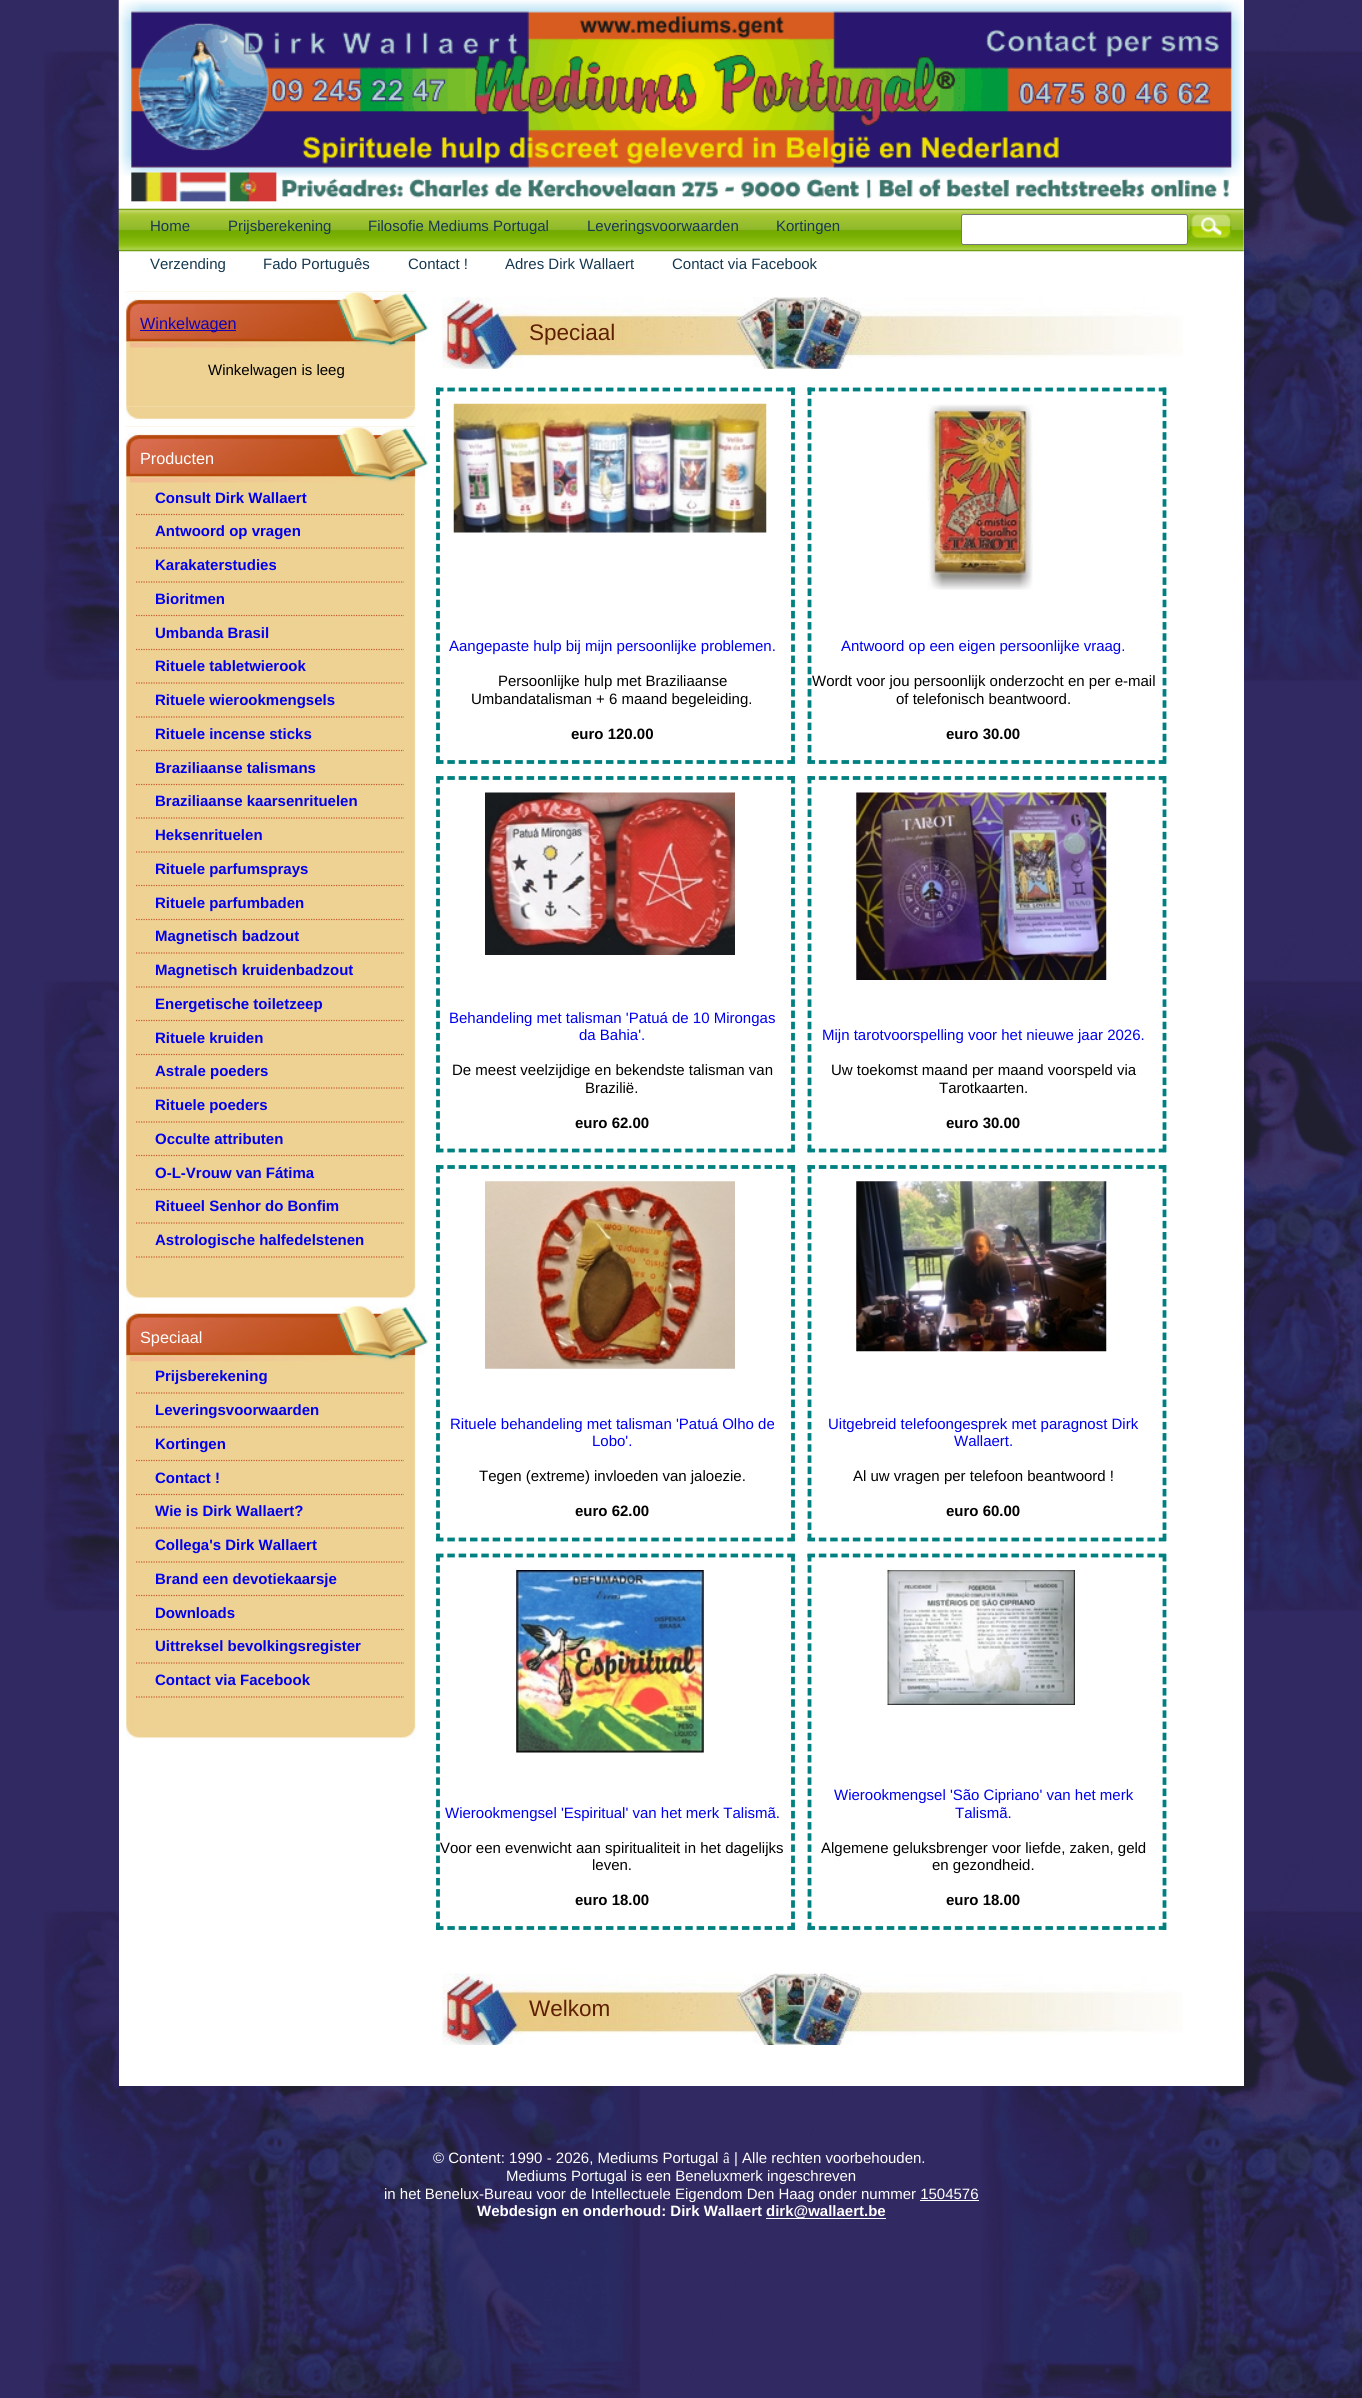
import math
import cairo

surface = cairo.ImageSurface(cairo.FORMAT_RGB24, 1362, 2398)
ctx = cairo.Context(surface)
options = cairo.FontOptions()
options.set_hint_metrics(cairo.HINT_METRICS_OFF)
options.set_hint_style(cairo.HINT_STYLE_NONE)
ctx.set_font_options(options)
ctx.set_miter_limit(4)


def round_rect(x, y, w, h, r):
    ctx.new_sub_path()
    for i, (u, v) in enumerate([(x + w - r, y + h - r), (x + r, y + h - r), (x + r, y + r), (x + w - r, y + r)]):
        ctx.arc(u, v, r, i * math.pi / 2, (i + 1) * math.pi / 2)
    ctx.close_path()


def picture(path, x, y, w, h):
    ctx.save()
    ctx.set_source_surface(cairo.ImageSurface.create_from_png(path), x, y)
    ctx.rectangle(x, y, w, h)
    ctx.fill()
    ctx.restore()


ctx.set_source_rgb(1, 1, 1)
ctx.paint()
picture("img1.png", 0, 0, 1362, 2398)
ctx.set_source_rgb(1, 1, 1)
ctx.rectangle(119, 0, 1125, 2086)
ctx.fill()
picture("img2.png", 118, 0, 1125, 209)
picture("img3.png", 118, 208, 1126, 44)
ctx.select_font_face("Liberation Sans")
ctx.set_font_size(15)
ctx.set_source_rgb(0.086, 0.22, 0.314)
ctx.move_to(150, 231)
ctx.show_text("Home")
ctx.move_to(228, 231)
ctx.show_text("Prijsberekening")
ctx.move_to(368, 231)
ctx.show_text("Filosofie Mediums Portugal")
ctx.move_to(587, 231)
ctx.show_text("Leveringsvoorwaarden")
ctx.move_to(776, 231)
ctx.show_text("Kortingen")
ctx.move_to(150, 269)
ctx.show_text("Verzending")
ctx.move_to(263, 269)
ctx.show_text("Fado Português")
ctx.move_to(408, 269)
ctx.show_text("Contact !")
ctx.move_to(505, 269)
ctx.show_text("Adres Dirk Wallaert")
ctx.move_to(672, 269)
ctx.show_text("Contact via Facebook")
ctx.set_source_rgb(1, 1, 1)
round_rect(961.5, 214.5, 226, 30, 2)
ctx.fill_preserve()
ctx.set_source_rgb(0.463, 0.463, 0.463)
ctx.set_line_width(1)
ctx.stroke()
picture("img4.png", 1190, 213, 42, 26)
picture("img5.png", 126, 291, 290, 116)
picture("img6.png", 125, 291, 304, 57)
ctx.set_source_rgb(0.082, 0.012, 0.686)
ctx.rectangle(140, 330, 96, 1)
ctx.fill()
ctx.set_font_size(16.25)
ctx.move_to(140, 329)
ctx.show_text("Winkelwagen")
ctx.set_font_size(15)
ctx.set_source_rgb(0, 0, 0)
ctx.move_to(208, 375)
ctx.show_text("Winkelwagen is leeg")
picture("img7.png", 126, 406, 290, 14)
picture("img8.png", 126, 426, 290, 859)
picture("img9.png", 125, 426, 304, 57)
ctx.set_font_size(16.25)
ctx.set_source_rgb(1, 1, 1)
ctx.move_to(140, 464)
ctx.show_text("Producten")
ctx.new_path()
ctx.move_to(136, 514.5)
ctx.line_to(404, 514.5)
ctx.set_source_rgb(0.784, 0.357, 0.184)
ctx.set_line_width(1.2)
ctx.set_dash([1.25, 1.25])
ctx.stroke()
ctx.select_font_face("Liberation Sans", cairo.FONT_SLANT_NORMAL, cairo.FONT_WEIGHT_BOLD)
ctx.set_font_size(15)
ctx.set_source_rgb(0, 0, 0.933)
ctx.move_to(155, 503)
ctx.show_text("Consult Dirk Wallaert")
ctx.new_path()
ctx.move_to(136, 548)
ctx.line_to(404, 548)
ctx.set_source_rgb(0.784, 0.357, 0.184)
ctx.stroke()
ctx.set_source_rgb(0, 0, 0.933)
ctx.move_to(155, 536)
ctx.show_text("Antwoord op vragen")
ctx.new_path()
ctx.move_to(136, 582)
ctx.line_to(404, 582)
ctx.set_source_rgb(0.784, 0.357, 0.184)
ctx.stroke()
ctx.set_source_rgb(0, 0, 0.933)
ctx.move_to(155, 570)
ctx.show_text("Karakaterstudies")
ctx.new_path()
ctx.move_to(136, 615.5)
ctx.line_to(404, 615.5)
ctx.set_source_rgb(0.784, 0.357, 0.184)
ctx.stroke()
ctx.set_source_rgb(0, 0, 0.933)
ctx.move_to(155, 604)
ctx.show_text("Bioritmen")
ctx.new_path()
ctx.move_to(136, 649.5)
ctx.line_to(404, 649.5)
ctx.set_source_rgb(0.784, 0.357, 0.184)
ctx.stroke()
ctx.set_source_rgb(0, 0, 0.933)
ctx.move_to(155, 638)
ctx.show_text("Umbanda Brasil")
ctx.new_path()
ctx.move_to(136, 683)
ctx.line_to(404, 683)
ctx.set_source_rgb(0.784, 0.357, 0.184)
ctx.stroke()
ctx.set_source_rgb(0, 0, 0.933)
ctx.move_to(155, 671)
ctx.show_text("Rituele tabletwierook")
ctx.new_path()
ctx.move_to(136, 717)
ctx.line_to(404, 717)
ctx.set_source_rgb(0.784, 0.357, 0.184)
ctx.stroke()
ctx.set_source_rgb(0, 0, 0.933)
ctx.move_to(155, 705)
ctx.show_text("Rituele wierookmengsels")
ctx.new_path()
ctx.move_to(136, 750.5)
ctx.line_to(404, 750.5)
ctx.set_source_rgb(0.784, 0.357, 0.184)
ctx.stroke()
ctx.set_source_rgb(0, 0, 0.933)
ctx.move_to(155, 739)
ctx.show_text("Rituele incense sticks")
ctx.new_path()
ctx.move_to(136, 784.5)
ctx.line_to(404, 784.5)
ctx.set_source_rgb(0.784, 0.357, 0.184)
ctx.stroke()
ctx.set_source_rgb(0, 0, 0.933)
ctx.move_to(155, 773)
ctx.show_text("Braziliaanse talismans")
ctx.new_path()
ctx.move_to(136, 818)
ctx.line_to(404, 818)
ctx.set_source_rgb(0.784, 0.357, 0.184)
ctx.stroke()
ctx.set_source_rgb(0, 0, 0.933)
ctx.move_to(155, 806)
ctx.show_text("Braziliaanse kaarsenrituelen")
ctx.new_path()
ctx.move_to(136, 852)
ctx.line_to(404, 852)
ctx.set_source_rgb(0.784, 0.357, 0.184)
ctx.stroke()
ctx.set_source_rgb(0, 0, 0.933)
ctx.move_to(155, 840)
ctx.show_text("Heksenrituelen")
ctx.new_path()
ctx.move_to(136, 885.5)
ctx.line_to(404, 885.5)
ctx.set_source_rgb(0.784, 0.357, 0.184)
ctx.stroke()
ctx.set_source_rgb(0, 0, 0.933)
ctx.move_to(155, 874)
ctx.show_text("Rituele parfumsprays")
ctx.new_path()
ctx.move_to(136, 919.5)
ctx.line_to(404, 919.5)
ctx.set_source_rgb(0.784, 0.357, 0.184)
ctx.stroke()
ctx.set_source_rgb(0, 0, 0.933)
ctx.move_to(155, 908)
ctx.show_text("Rituele parfumbaden")
ctx.new_path()
ctx.move_to(136, 953)
ctx.line_to(404, 953)
ctx.set_source_rgb(0.784, 0.357, 0.184)
ctx.stroke()
ctx.set_source_rgb(0, 0, 0.933)
ctx.move_to(155, 941)
ctx.show_text("Magnetisch badzout")
ctx.new_path()
ctx.move_to(136, 987)
ctx.line_to(404, 987)
ctx.set_source_rgb(0.784, 0.357, 0.184)
ctx.stroke()
ctx.set_source_rgb(0, 0, 0.933)
ctx.move_to(155, 975)
ctx.show_text("Magnetisch kruidenbadzout")
ctx.new_path()
ctx.move_to(136, 1020.5)
ctx.line_to(404, 1020.5)
ctx.set_source_rgb(0.784, 0.357, 0.184)
ctx.stroke()
ctx.set_source_rgb(0, 0, 0.933)
ctx.move_to(155, 1009)
ctx.show_text("Energetische toiletzeep")
ctx.new_path()
ctx.move_to(136, 1054.5)
ctx.line_to(404, 1054.5)
ctx.set_source_rgb(0.784, 0.357, 0.184)
ctx.stroke()
ctx.set_source_rgb(0, 0, 0.933)
ctx.move_to(155, 1043)
ctx.show_text("Rituele kruiden")
ctx.new_path()
ctx.move_to(136, 1088)
ctx.line_to(404, 1088)
ctx.set_source_rgb(0.784, 0.357, 0.184)
ctx.stroke()
ctx.set_source_rgb(0, 0, 0.933)
ctx.move_to(155, 1076)
ctx.show_text("Astrale poeders")
ctx.new_path()
ctx.move_to(136, 1122)
ctx.line_to(404, 1122)
ctx.set_source_rgb(0.784, 0.357, 0.184)
ctx.stroke()
ctx.set_source_rgb(0, 0, 0.933)
ctx.move_to(155, 1110)
ctx.show_text("Rituele poeders")
ctx.new_path()
ctx.move_to(136, 1155.5)
ctx.line_to(404, 1155.5)
ctx.set_source_rgb(0.784, 0.357, 0.184)
ctx.stroke()
ctx.set_source_rgb(0, 0, 0.933)
ctx.move_to(155, 1144)
ctx.show_text("Occulte attributen")
ctx.new_path()
ctx.move_to(136, 1189.5)
ctx.line_to(404, 1189.5)
ctx.set_source_rgb(0.784, 0.357, 0.184)
ctx.stroke()
ctx.set_source_rgb(0, 0, 0.933)
ctx.move_to(155, 1178)
ctx.show_text("O-L-Vrouw van Fátima")
ctx.new_path()
ctx.move_to(136, 1223)
ctx.line_to(404, 1223)
ctx.set_source_rgb(0.784, 0.357, 0.184)
ctx.stroke()
ctx.set_source_rgb(0, 0, 0.933)
ctx.move_to(155, 1211)
ctx.show_text("Ritueel Senhor do Bonfim")
ctx.new_path()
ctx.move_to(136, 1257)
ctx.line_to(404, 1257)
ctx.set_source_rgb(0.784, 0.357, 0.184)
ctx.stroke()
ctx.set_source_rgb(0, 0, 0.933)
ctx.move_to(155, 1245)
ctx.show_text("Astrologische halfedelstenen")
picture("img10.png", 126, 1285, 290, 14)
picture("img11.png", 126, 1361, 290, 364)
picture("img12.png", 125, 1305, 304, 57)
ctx.select_font_face("Liberation Sans")
ctx.set_font_size(16.25)
ctx.set_source_rgb(1, 1, 1)
ctx.move_to(140, 1343)
ctx.show_text("Speciaal")
ctx.new_path()
ctx.move_to(136, 1393)
ctx.line_to(404, 1393)
ctx.set_source_rgb(0.784, 0.357, 0.184)
ctx.stroke()
ctx.select_font_face("Liberation Sans", cairo.FONT_SLANT_NORMAL, cairo.FONT_WEIGHT_BOLD)
ctx.set_font_size(15)
ctx.set_source_rgb(0, 0, 0.933)
ctx.move_to(155, 1381)
ctx.show_text("Prijsberekening")
ctx.new_path()
ctx.move_to(136, 1427)
ctx.line_to(404, 1427)
ctx.set_source_rgb(0.784, 0.357, 0.184)
ctx.stroke()
ctx.set_source_rgb(0, 0, 0.933)
ctx.move_to(155, 1415)
ctx.show_text("Leveringsvoorwaarden")
ctx.new_path()
ctx.move_to(136, 1460.5)
ctx.line_to(404, 1460.5)
ctx.set_source_rgb(0.784, 0.357, 0.184)
ctx.stroke()
ctx.set_source_rgb(0, 0, 0.933)
ctx.move_to(155, 1449)
ctx.show_text("Kortingen")
ctx.new_path()
ctx.move_to(136, 1494.5)
ctx.line_to(404, 1494.5)
ctx.set_source_rgb(0.784, 0.357, 0.184)
ctx.stroke()
ctx.set_source_rgb(0, 0, 0.933)
ctx.move_to(155, 1483)
ctx.show_text("Contact !")
ctx.new_path()
ctx.move_to(136, 1528)
ctx.line_to(404, 1528)
ctx.set_source_rgb(0.784, 0.357, 0.184)
ctx.stroke()
ctx.set_source_rgb(0, 0, 0.933)
ctx.move_to(155, 1516)
ctx.show_text("Wie is Dirk Wallaert?")
ctx.new_path()
ctx.move_to(136, 1562)
ctx.line_to(404, 1562)
ctx.set_source_rgb(0.784, 0.357, 0.184)
ctx.stroke()
ctx.set_source_rgb(0, 0, 0.933)
ctx.move_to(155, 1550)
ctx.show_text("Collega's Dirk Wallaert")
ctx.new_path()
ctx.move_to(136, 1595.5)
ctx.line_to(404, 1595.5)
ctx.set_source_rgb(0.784, 0.357, 0.184)
ctx.stroke()
ctx.set_source_rgb(0, 0, 0.933)
ctx.move_to(155, 1584)
ctx.show_text("Brand een devotiekaarsje")
ctx.new_path()
ctx.move_to(136, 1629.5)
ctx.line_to(404, 1629.5)
ctx.set_source_rgb(0.784, 0.357, 0.184)
ctx.stroke()
ctx.set_source_rgb(0, 0, 0.933)
ctx.move_to(155, 1618)
ctx.show_text("Downloads")
ctx.new_path()
ctx.move_to(136, 1663)
ctx.line_to(404, 1663)
ctx.set_source_rgb(0.784, 0.357, 0.184)
ctx.stroke()
ctx.set_source_rgb(0, 0, 0.933)
ctx.move_to(155, 1651)
ctx.show_text("Uittreksel bevolkingsregister")
ctx.new_path()
ctx.move_to(136, 1697)
ctx.line_to(404, 1697)
ctx.set_source_rgb(0.784, 0.357, 0.184)
ctx.stroke()
ctx.set_source_rgb(0, 0, 0.933)
ctx.move_to(155, 1685)
ctx.show_text("Contact via Facebook")
picture("img10.png", 126, 1725, 290, 14)
picture("img13.png", 442, 297, 741, 72)
ctx.select_font_face("Liberation Sans")
ctx.set_font_size(22.5)
ctx.set_source_rgb(0.369, 0.125, 0.004)
ctx.move_to(529, 340)
ctx.show_text("Speciaal")
ctx.new_path()
ctx.move_to(436, 389.5)
ctx.line_to(795, 389.5)
ctx.set_source_rgb(0, 0.502, 0.502)
ctx.set_line_width(3.8)
ctx.set_dash([7.5, 3.83])
ctx.stroke()
ctx.new_path()
ctx.move_to(793, 387.5)
ctx.line_to(793, 764)
ctx.set_dash([7.5, 3.67])
ctx.stroke()
ctx.new_path()
ctx.move_to(436, 762)
ctx.line_to(795, 762)
ctx.set_dash([7.5, 3.83])
ctx.stroke()
ctx.new_path()
ctx.move_to(438, 387.5)
ctx.line_to(438, 764)
ctx.set_dash([7.5, 3.67])
ctx.stroke()
picture("img14.png", 453, 403, 314, 130)
ctx.set_font_size(15)
ctx.set_source_rgb(0, 0, 0.933)
ctx.move_to(449, 651)
ctx.show_text("Aangepaste hulp bij mijn persoonlijke problemen.")
ctx.set_source_rgb(0, 0, 0)
ctx.move_to(498, 686)
ctx.show_text("Persoonlijke hulp met Braziliaanse")
ctx.move_to(471, 704)
ctx.show_text("Umbandatalisman + 6 maand begeleiding.")
ctx.select_font_face("Liberation Sans", cairo.FONT_SLANT_NORMAL, cairo.FONT_WEIGHT_BOLD)
ctx.move_to(571, 739)
ctx.show_text("euro 120.00")
ctx.new_path()
ctx.move_to(807.5, 389.5)
ctx.line_to(1166, 389.5)
ctx.set_source_rgb(0, 0.502, 0.502)
ctx.set_dash([7.5, 3.83])
ctx.stroke()
ctx.new_path()
ctx.move_to(1164.5, 387.5)
ctx.line_to(1164.5, 764)
ctx.set_dash([7.5, 3.67])
ctx.stroke()
ctx.new_path()
ctx.move_to(807.5, 762)
ctx.line_to(1166, 762)
ctx.set_dash([7.5, 3.83])
ctx.stroke()
ctx.new_path()
ctx.move_to(809.5, 387.5)
ctx.line_to(809.5, 764)
ctx.set_dash([7.5, 3.67])
ctx.stroke()
picture("img15.png", 927, 404, 106, 186)
ctx.select_font_face("Liberation Sans")
ctx.set_source_rgb(0, 0, 0.933)
ctx.move_to(841, 651)
ctx.show_text("Antwoord op een eigen persoonlijke vraag.")
ctx.set_source_rgb(0, 0, 0)
ctx.move_to(812, 686)
ctx.show_text("Wordt voor jou persoonlijk onderzocht en per e-mail")
ctx.move_to(896, 704)
ctx.show_text("of telefonisch beantwoord.")
ctx.select_font_face("Liberation Sans", cairo.FONT_SLANT_NORMAL, cairo.FONT_WEIGHT_BOLD)
ctx.move_to(946, 739)
ctx.show_text("euro 30.00")
ctx.new_path()
ctx.move_to(436, 778)
ctx.line_to(795, 778)
ctx.set_source_rgb(0, 0.502, 0.502)
ctx.set_dash([7.5, 3.83])
ctx.stroke()
ctx.new_path()
ctx.move_to(793, 776)
ctx.line_to(793, 1152.5)
ctx.set_dash([7.5, 3.67])
ctx.stroke()
ctx.new_path()
ctx.move_to(436, 1150.5)
ctx.line_to(795, 1150.5)
ctx.set_dash([7.5, 3.83])
ctx.stroke()
ctx.new_path()
ctx.move_to(438, 776)
ctx.line_to(438, 1152.5)
ctx.set_dash([7.5, 3.67])
ctx.stroke()
picture("img16.png", 485, 792, 250, 163)
ctx.select_font_face("Liberation Sans")
ctx.set_source_rgb(0, 0, 0.933)
ctx.move_to(449, 1023)
ctx.show_text("Behandeling met talisman 'Patuá de 10 Mirongas")
ctx.move_to(579, 1040)
ctx.show_text("da Bahia'.")
ctx.set_source_rgb(0, 0, 0)
ctx.move_to(452, 1075)
ctx.show_text("De meest veelzijdige en bekendste talisman van")
ctx.move_to(585, 1093)
ctx.show_text("Brazilië.")
ctx.select_font_face("Liberation Sans", cairo.FONT_SLANT_NORMAL, cairo.FONT_WEIGHT_BOLD)
ctx.move_to(575, 1128)
ctx.show_text("euro 62.00")
ctx.new_path()
ctx.move_to(807.5, 778)
ctx.line_to(1166, 778)
ctx.set_source_rgb(0, 0.502, 0.502)
ctx.set_dash([7.5, 3.83])
ctx.stroke()
ctx.new_path()
ctx.move_to(1164.5, 776)
ctx.line_to(1164.5, 1152.5)
ctx.set_dash([7.5, 3.67])
ctx.stroke()
ctx.new_path()
ctx.move_to(807.5, 1150.5)
ctx.line_to(1166, 1150.5)
ctx.set_dash([7.5, 3.83])
ctx.stroke()
ctx.new_path()
ctx.move_to(809.5, 776)
ctx.line_to(809.5, 1152.5)
ctx.set_dash([7.5, 3.67])
ctx.stroke()
picture("img17.png", 856, 792, 251, 188)
ctx.select_font_face("Liberation Sans")
ctx.set_source_rgb(0, 0, 0.933)
ctx.move_to(822, 1040)
ctx.show_text("Mijn tarotvoorspelling voor het nieuwe jaar 2026.")
ctx.set_source_rgb(0, 0, 0)
ctx.move_to(831, 1075)
ctx.show_text("Uw toekomst maand per maand voorspeld via")
ctx.move_to(939, 1093)
ctx.show_text("Tarotkaarten.")
ctx.select_font_face("Liberation Sans", cairo.FONT_SLANT_NORMAL, cairo.FONT_WEIGHT_BOLD)
ctx.move_to(946, 1128)
ctx.show_text("euro 30.00")
ctx.new_path()
ctx.move_to(436, 1167)
ctx.line_to(795, 1167)
ctx.set_source_rgb(0, 0.502, 0.502)
ctx.set_dash([7.5, 3.83])
ctx.stroke()
ctx.new_path()
ctx.move_to(793, 1165)
ctx.line_to(793, 1541)
ctx.set_dash([7.5, 3.67])
ctx.stroke()
ctx.new_path()
ctx.move_to(436, 1539.5)
ctx.line_to(795, 1539.5)
ctx.set_dash([7.5, 3.83])
ctx.stroke()
ctx.new_path()
ctx.move_to(438, 1165)
ctx.line_to(438, 1541)
ctx.set_dash([7.5, 3.67])
ctx.stroke()
picture("img18.png", 485, 1181, 250, 188)
ctx.select_font_face("Liberation Sans")
ctx.set_source_rgb(0, 0, 0.933)
ctx.move_to(450, 1429)
ctx.show_text("Rituele behandeling met talisman 'Patuá Olho de")
ctx.move_to(592, 1446)
ctx.show_text("Lobo'.")
ctx.set_source_rgb(0, 0, 0)
ctx.move_to(479, 1481)
ctx.show_text("Tegen (extreme) invloeden van jaloezie.")
ctx.select_font_face("Liberation Sans", cairo.FONT_SLANT_NORMAL, cairo.FONT_WEIGHT_BOLD)
ctx.move_to(575, 1516)
ctx.show_text("euro 62.00")
ctx.new_path()
ctx.move_to(807.5, 1167)
ctx.line_to(1166, 1167)
ctx.set_source_rgb(0, 0.502, 0.502)
ctx.set_dash([7.5, 3.83])
ctx.stroke()
ctx.new_path()
ctx.move_to(1164.5, 1165)
ctx.line_to(1164.5, 1541)
ctx.set_dash([7.5, 3.67])
ctx.stroke()
ctx.new_path()
ctx.move_to(807.5, 1539.5)
ctx.line_to(1166, 1539.5)
ctx.set_dash([7.5, 3.83])
ctx.stroke()
ctx.new_path()
ctx.move_to(809.5, 1165)
ctx.line_to(809.5, 1541)
ctx.set_dash([7.5, 3.67])
ctx.stroke()
picture("img19.png", 856, 1181, 251, 171)
ctx.select_font_face("Liberation Sans")
ctx.set_source_rgb(0, 0, 0.933)
ctx.move_to(828, 1429)
ctx.show_text("Uitgebreid telefoongesprek met paragnost Dirk")
ctx.move_to(954, 1446)
ctx.show_text("Wallaert.")
ctx.set_source_rgb(0, 0, 0)
ctx.move_to(853, 1481)
ctx.show_text("Al uw vragen per telefoon beantwoord !")
ctx.select_font_face("Liberation Sans", cairo.FONT_SLANT_NORMAL, cairo.FONT_WEIGHT_BOLD)
ctx.move_to(946, 1516)
ctx.show_text("euro 60.00")
ctx.new_path()
ctx.move_to(436, 1555.5)
ctx.line_to(795, 1555.5)
ctx.set_source_rgb(0, 0.502, 0.502)
ctx.set_dash([7.5, 3.83])
ctx.stroke()
ctx.new_path()
ctx.move_to(793, 1554)
ctx.line_to(793, 1930)
ctx.set_dash([7.5, 3.67])
ctx.stroke()
ctx.new_path()
ctx.move_to(436, 1928)
ctx.line_to(795, 1928)
ctx.set_dash([7.5, 3.83])
ctx.stroke()
ctx.new_path()
ctx.move_to(438, 1554)
ctx.line_to(438, 1930)
ctx.set_dash([7.5, 3.67])
ctx.stroke()
picture("img20.png", 516, 1570, 188, 183)
ctx.select_font_face("Liberation Sans")
ctx.set_source_rgb(0, 0, 0.933)
ctx.move_to(445, 1818)
ctx.show_text("Wierookmengsel 'Espiritual' van het merk Talismã.")
ctx.set_source_rgb(0, 0, 0)
ctx.move_to(440, 1853)
ctx.show_text("Voor een evenwicht aan spiritualiteit in het dagelijks")
ctx.move_to(592, 1870)
ctx.show_text("leven.")
ctx.select_font_face("Liberation Sans", cairo.FONT_SLANT_NORMAL, cairo.FONT_WEIGHT_BOLD)
ctx.move_to(575, 1905)
ctx.show_text("euro 18.00")
ctx.new_path()
ctx.move_to(807.5, 1555.5)
ctx.line_to(1166, 1555.5)
ctx.set_source_rgb(0, 0.502, 0.502)
ctx.set_dash([7.5, 3.83])
ctx.stroke()
ctx.new_path()
ctx.move_to(1164.5, 1554)
ctx.line_to(1164.5, 1930)
ctx.set_dash([7.5, 3.67])
ctx.stroke()
ctx.new_path()
ctx.move_to(807.5, 1928)
ctx.line_to(1166, 1928)
ctx.set_dash([7.5, 3.83])
ctx.stroke()
ctx.new_path()
ctx.move_to(809.5, 1554)
ctx.line_to(809.5, 1930)
ctx.set_dash([7.5, 3.67])
ctx.stroke()
picture("img21.png", 887, 1570, 188, 135)
ctx.select_font_face("Liberation Sans")
ctx.set_source_rgb(0, 0, 0.933)
ctx.move_to(834, 1800)
ctx.show_text("Wierookmengsel 'São Cipriano' van het merk")
ctx.move_to(955, 1818)
ctx.show_text("Talismã.")
ctx.set_source_rgb(0, 0, 0)
ctx.move_to(821, 1853)
ctx.show_text("Algemene geluksbrenger voor liefde, zaken, geld")
ctx.move_to(932, 1870)
ctx.show_text("en gezondheid.")
ctx.select_font_face("Liberation Sans", cairo.FONT_SLANT_NORMAL, cairo.FONT_WEIGHT_BOLD)
ctx.move_to(946, 1905)
ctx.show_text("euro 18.00")
picture("img22.png", 442, 1973, 741, 72)
ctx.select_font_face("Liberation Sans")
ctx.set_font_size(22.5)
ctx.set_source_rgb(0.369, 0.125, 0.004)
ctx.move_to(529, 2016)
ctx.show_text("Welkom")
ctx.set_font_size(15)
ctx.set_source_rgb(1, 1, 1)
ctx.move_to(433, 2163)
ctx.show_text("© Content: 1990 - 2026, Mediums Portugal")
ctx.select_font_face("Liberation Serif")
ctx.move_to(723, 2163)
ctx.show_text("â")
ctx.select_font_face("Liberation Sans")
ctx.move_to(734, 2163)
ctx.show_text("| Alle rechten voorbehouden.")
ctx.move_to(506, 2181)
ctx.show_text("Mediums Portugal is een Beneluxmerk ingeschreven")
ctx.move_to(384, 2199)
ctx.show_text("in het Benelux-Bureau voor de Intellectuele Eigendom Den Haag onder nummer 1504576")
ctx.rectangle(920, 2200, 59, 1)
ctx.fill()
ctx.select_font_face("Liberation Sans", cairo.FONT_SLANT_NORMAL, cairo.FONT_WEIGHT_BOLD)
ctx.move_to(477, 2216)
ctx.show_text("Webdesign en onderhoud: Dirk Wallaert")
ctx.rectangle(766, 2218, 120, 1)
ctx.fill()
ctx.move_to(766, 2216)
ctx.show_text("dirk@wallaert.be")
surface.write_to_png("page.png")
